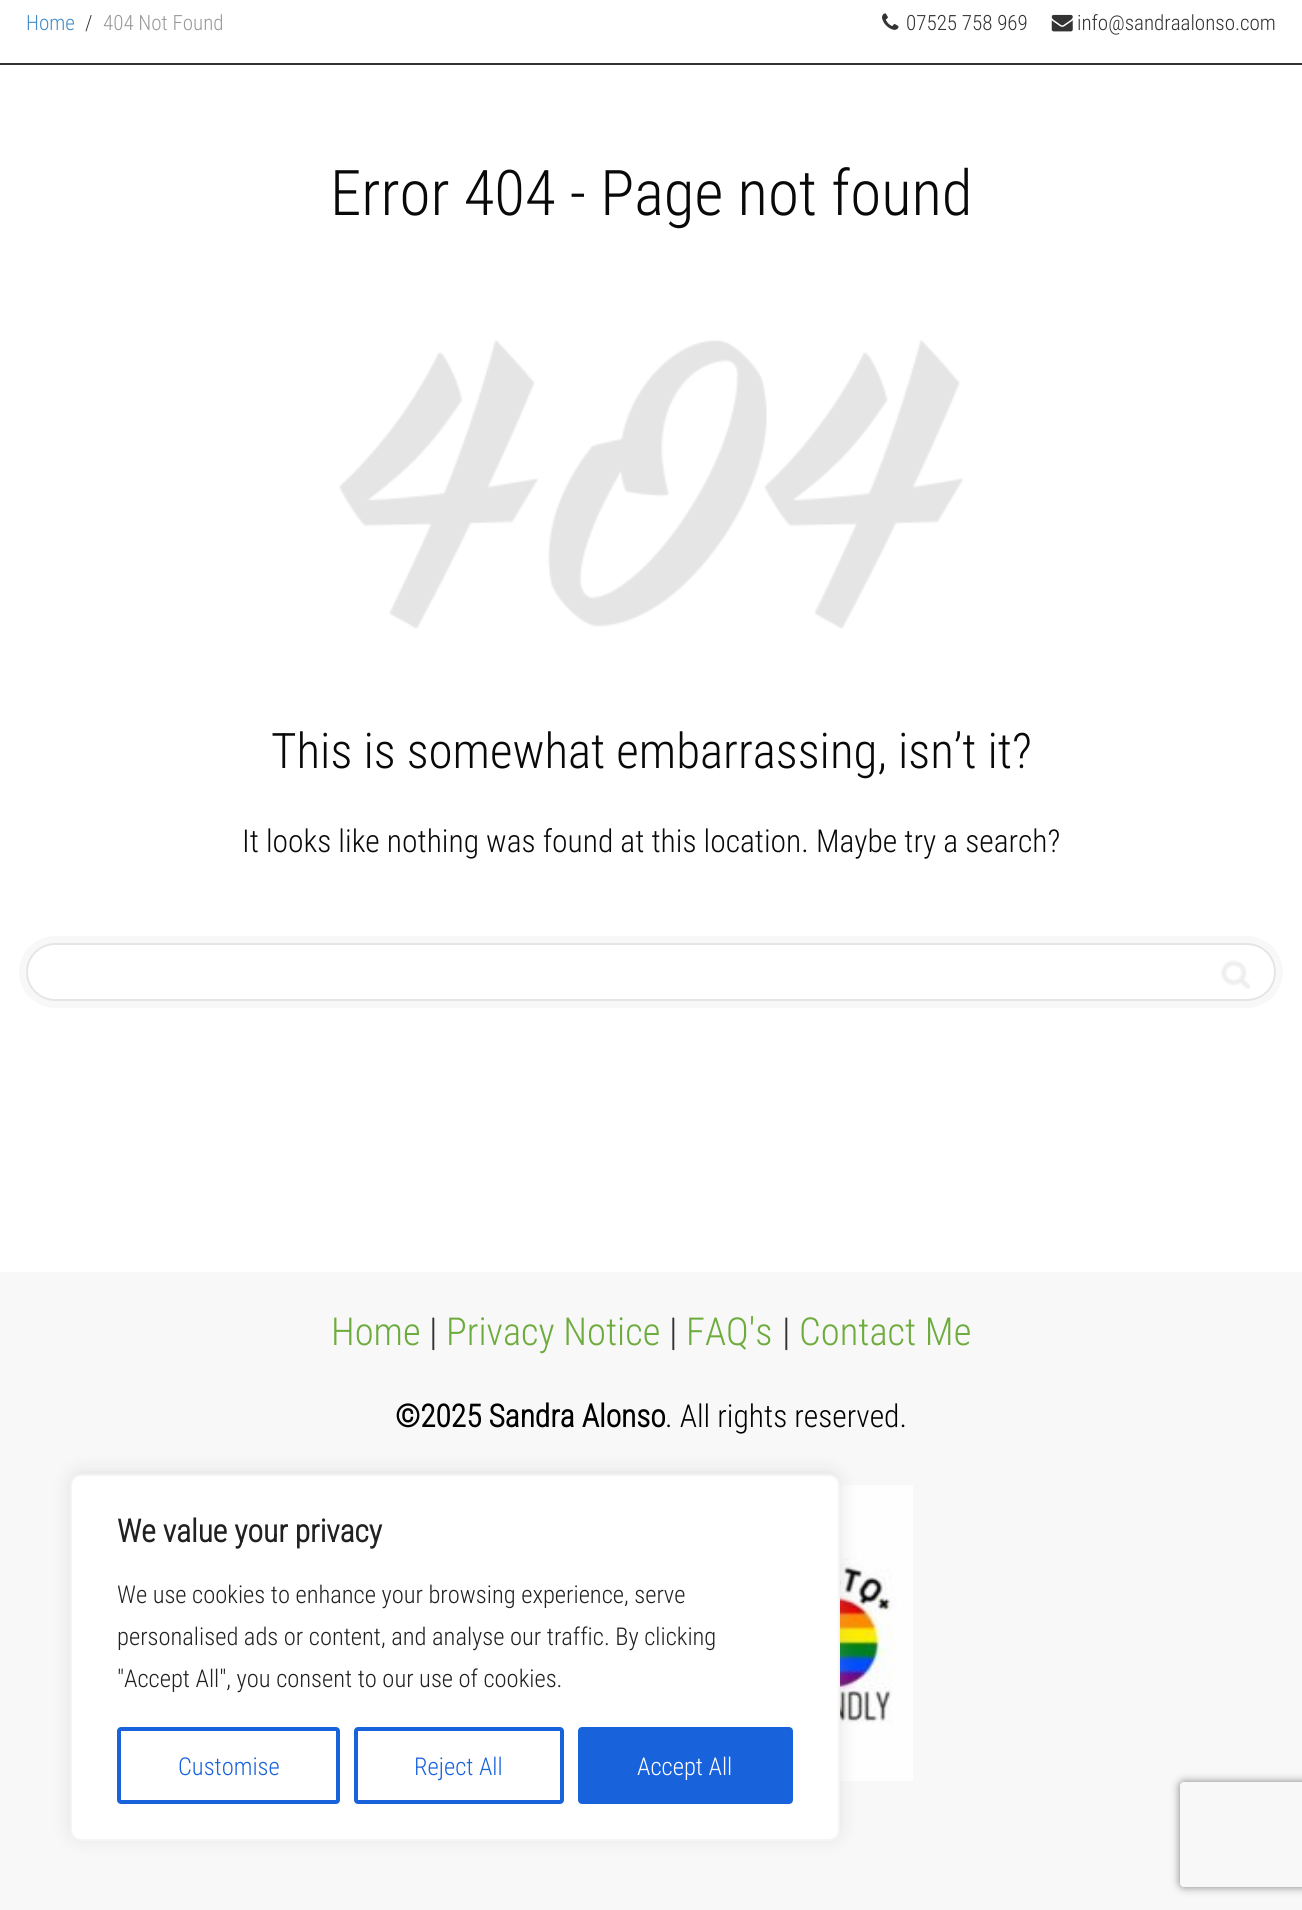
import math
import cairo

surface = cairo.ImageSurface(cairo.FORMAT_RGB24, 1302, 1910)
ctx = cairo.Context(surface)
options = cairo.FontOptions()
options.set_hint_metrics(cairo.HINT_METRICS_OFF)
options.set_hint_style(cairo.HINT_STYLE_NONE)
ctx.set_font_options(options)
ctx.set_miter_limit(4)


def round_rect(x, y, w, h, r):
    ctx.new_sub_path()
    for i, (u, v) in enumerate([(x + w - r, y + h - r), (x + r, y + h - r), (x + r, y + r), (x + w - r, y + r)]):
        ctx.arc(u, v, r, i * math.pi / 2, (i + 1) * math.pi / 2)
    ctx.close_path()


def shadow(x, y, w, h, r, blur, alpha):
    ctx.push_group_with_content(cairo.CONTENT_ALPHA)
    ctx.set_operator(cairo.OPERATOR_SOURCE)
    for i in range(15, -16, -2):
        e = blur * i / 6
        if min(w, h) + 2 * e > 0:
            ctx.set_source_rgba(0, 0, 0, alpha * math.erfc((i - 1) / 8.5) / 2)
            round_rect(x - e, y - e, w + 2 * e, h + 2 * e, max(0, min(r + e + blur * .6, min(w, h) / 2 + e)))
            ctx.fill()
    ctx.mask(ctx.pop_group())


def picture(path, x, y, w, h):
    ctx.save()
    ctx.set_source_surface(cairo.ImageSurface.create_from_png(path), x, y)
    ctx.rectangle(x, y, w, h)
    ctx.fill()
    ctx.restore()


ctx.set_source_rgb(1, 1, 1)
ctx.paint()
ctx.set_source_rgb(0.2, 0.2, 0.2)
ctx.rectangle(0, 63, 1302, 2)
ctx.fill()
ctx.select_font_face("Roboto Condensed Light")
ctx.set_font_size(21)
ctx.set_source_rgb(0.259, 0.545, 0.792)
ctx.move_to(26, 30)
ctx.show_text("Home")
ctx.set_source_rgb(0.2, 0.2, 0.2)
ctx.move_to(85, 30)
ctx.show_text("/")
ctx.set_source_rgb(0.6, 0.6, 0.6)
ctx.move_to(103, 30)
ctx.show_text("404 Not Found")
picture("img1.png", 882, 13, 17, 17)
ctx.set_source_rgb(0.2, 0.2, 0.2)
ctx.move_to(906, 30)
ctx.show_text("07525 758 969")
picture("img2.png", 1051, 14, 22, 18)
ctx.move_to(1077, 30)
ctx.show_text("info@sandraalonso.com")
ctx.set_font_size(63)
ctx.set_source_rgb(0.039, 0.039, 0.039)
ctx.move_to(330, 215)
ctx.show_text("Error 404 - Page not found")
picture("img3.png", 339, 340, 624, 289)
ctx.set_font_size(49)
ctx.move_to(271, 768)
ctx.show_text("This is somewhat embarrassing, isn’t it?")
ctx.set_font_size(31.5)
ctx.move_to(242, 852)
ctx.show_text("It looks like nothing was found at this location. Maybe try a search?")
round_rect(22.5, 939.5, 1257, 65, 32.5)
ctx.set_source_rgb(0.969, 0.969, 0.969)
ctx.set_line_width(7)
ctx.stroke()
round_rect(27, 944, 1248, 56, 28)
ctx.set_source_rgb(0.898, 0.898, 0.898)
ctx.set_line_width(2)
ctx.stroke()
picture("img4.png", 1221, 960, 29, 29)
ctx.set_source_rgb(0.969, 0.969, 0.969)
ctx.rectangle(0, 1272, 1302, 638)
ctx.fill()
ctx.set_font_size(38.5)
ctx.set_source_rgb(0.427, 0.671, 0.235)
ctx.move_to(331, 1345)
ctx.show_text("Home")
ctx.set_source_rgb(0.2, 0.2, 0.2)
ctx.move_to(429, 1345)
ctx.show_text("|")
ctx.set_source_rgb(0.427, 0.671, 0.235)
ctx.move_to(446, 1345)
ctx.show_text("Privacy Notice")
ctx.set_source_rgb(0.2, 0.2, 0.2)
ctx.move_to(669, 1345)
ctx.show_text("|")
ctx.set_source_rgb(0.427, 0.671, 0.235)
ctx.move_to(686, 1345)
ctx.show_text("FAQ's")
ctx.set_source_rgb(0.2, 0.2, 0.2)
ctx.move_to(782, 1345)
ctx.show_text("|")
ctx.set_source_rgb(0.427, 0.671, 0.235)
ctx.move_to(799, 1345)
ctx.show_text("Contact Me")
ctx.select_font_face("Roboto Condensed", cairo.FONT_SLANT_NORMAL, cairo.FONT_WEIGHT_BOLD)
ctx.set_font_size(31.5)
ctx.set_source_rgb(0, 0, 0)
ctx.move_to(395, 1427)
ctx.show_text("©2025 Sandra Alonso")
ctx.select_font_face("Roboto Condensed Light")
ctx.move_to(665, 1427)
ctx.show_text(". All rights reserved.")
picture("img5.png", 840, 1485, 73, 296)
ctx.set_source_rgb(0.675, 0.671, 0.671)
shadow(70, 1472, 770, 367, 11, 9, 0.3)
ctx.set_source_rgb(1, 1, 1)
round_rect(71, 1475, 768, 365, 10)
ctx.fill_preserve()
ctx.set_source_rgb(0.957, 0.957, 0.957)
ctx.stroke()
ctx.select_font_face("Roboto Condensed", cairo.FONT_SLANT_NORMAL, cairo.FONT_WEIGHT_BOLD)
ctx.set_source_rgb(0.129, 0.129, 0.129)
ctx.move_to(117, 1542)
ctx.show_text("We value your privacy")
ctx.select_font_face("Roboto Condensed Light")
ctx.set_font_size(24.5)
ctx.move_to(117, 1603)
ctx.show_text("We use cookies to enhance your browsing experience, serve")
ctx.move_to(117, 1645)
ctx.show_text("personalised ads or content, and analyse our traffic. By clicking")
ctx.move_to(117, 1687)
ctx.show_text("\"Accept All\", you consent to our use of cookies.")
round_rect(119, 1729, 219, 73, 2)
ctx.set_source_rgb(0.094, 0.388, 0.863)
ctx.set_line_width(4)
ctx.stroke()
ctx.move_to(178, 1775)
ctx.show_text("Customise")
round_rect(356, 1729, 206, 73, 2)
ctx.stroke()
ctx.move_to(414, 1775)
ctx.show_text("Reject All")
round_rect(580, 1729, 211, 73, 2)
ctx.fill_preserve()
ctx.stroke()
ctx.set_source_rgb(1, 1, 1)
ctx.move_to(637, 1775)
ctx.show_text("Accept All")
ctx.save()
ctx.set_fill_rule(cairo.FILL_RULE_EVEN_ODD)
ctx.new_path()
ctx.move_to(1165, 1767)
ctx.line_to(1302, 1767)
ctx.line_to(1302, 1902)
ctx.line_to(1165, 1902)
ctx.close_path()
ctx.move_to(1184, 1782)
ctx.line_to(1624, 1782)
ctx.curve_to(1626, 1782, 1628, 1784, 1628, 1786)
ctx.line_to(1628, 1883)
ctx.curve_to(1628, 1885, 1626, 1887, 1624, 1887)
ctx.line_to(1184, 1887)
ctx.curve_to(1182, 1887, 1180, 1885, 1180, 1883)
ctx.line_to(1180, 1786)
ctx.curve_to(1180, 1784, 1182, 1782, 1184, 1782)
ctx.close_path()
ctx.clip()
ctx.set_source_rgb(0.502, 0.502, 0.502)
shadow(1180, 1782, 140, 105, 4, 4.5, 1)
ctx.restore()
surface.write_to_png("page.png")
